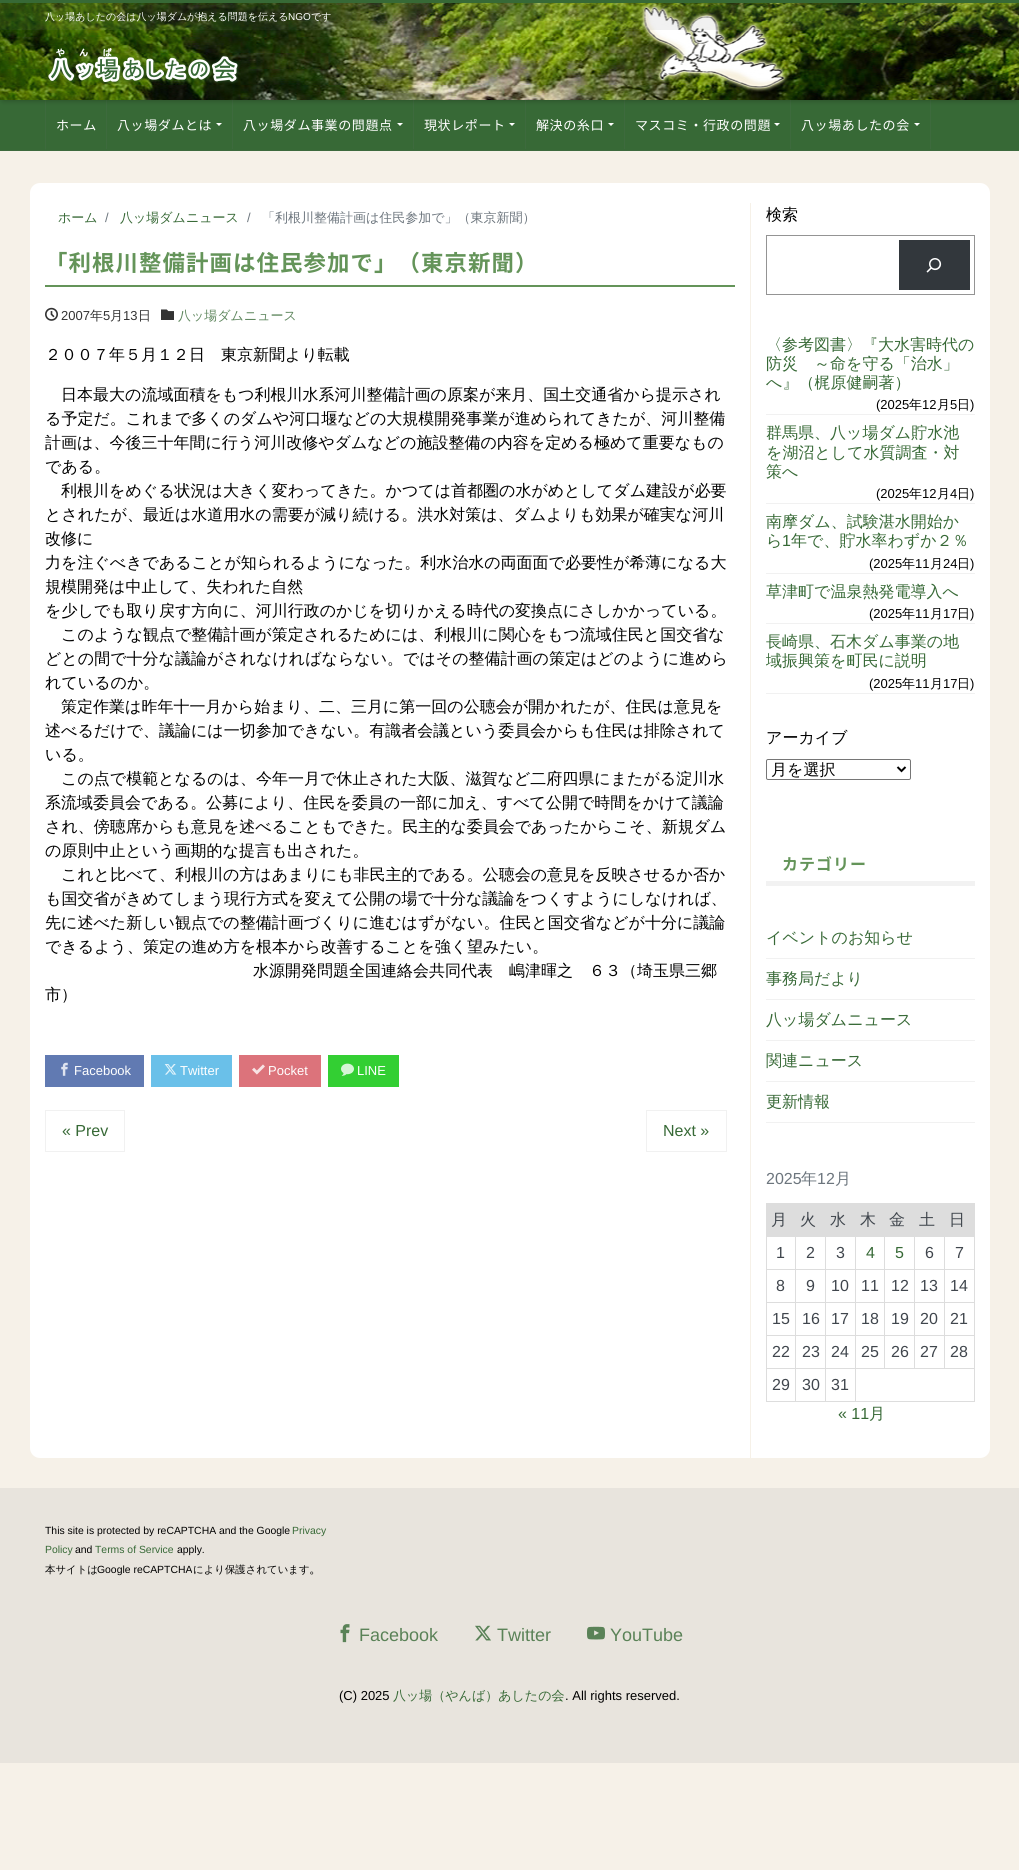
import math
import cairo

surface = cairo.ImageSurface(cairo.FORMAT_RGB24, 1019, 1870)
ctx = cairo.Context(surface)
options = cairo.FontOptions()
options.set_hint_metrics(cairo.HINT_METRICS_OFF)
options.set_hint_style(cairo.HINT_STYLE_NONE)
ctx.set_font_options(options)
ctx.set_miter_limit(4)


def spaced_text(x, y, s, letter, word):
    ctx.move_to(x, y)
    for ch in s:
        ctx.show_text(ch)
        ctx.rel_move_to(letter + word * (ch == ' '), 0)


def round_rect(x, y, w, h, r):
    ctx.new_sub_path()
    for i, (u, v) in enumerate([(x + w - r, y + h - r), (x + r, y + h - r), (x + r, y + r), (x + w - r, y + r)]):
        ctx.arc(u, v, r, i * math.pi / 2, (i + 1) * math.pi / 2)
    ctx.close_path()


def shadow(x, y, w, h, r, blur, alpha):
    ctx.push_group_with_content(cairo.CONTENT_ALPHA)
    ctx.set_operator(cairo.OPERATOR_SOURCE)
    for i in range(15, -16, -2):
        e = blur * i / 6
        if min(w, h) + 2 * e > 0:
            ctx.set_source_rgba(0, 0, 0, alpha * math.erfc((i - 1) / 8.5) / 2)
            round_rect(x - e, y - e, w + 2 * e, h + 2 * e, max(0, min(r + e + blur * .6, min(w, h) / 2 + e)))
            ctx.fill()
    ctx.mask(ctx.pop_group())


def picture(path, x, y, w, h):
    ctx.save()
    ctx.set_source_surface(cairo.ImageSurface.create_from_png(path), x, y)
    ctx.rectangle(x, y, w, h)
    ctx.fill()
    ctx.restore()


ctx.set_source_rgb(0.961, 0.945, 0.91)
ctx.paint()
ctx.set_source_rgb(0.216, 0.412, 0.212)
ctx.rectangle(0, 100, 1019, 50)
ctx.fill()
ctx.set_source_rgb(0.239, 0.416, 0.239)
ctx.new_path()
ctx.move_to(45, 150)
ctx.line_to(45, 100)
ctx.line_to(46, 100)
ctx.line_to(46, 149)
ctx.close_path()
ctx.fill()
ctx.rectangle(106, 100, 1, 49)
ctx.fill()
ctx.rectangle(232, 100, 1, 49)
ctx.fill()
ctx.rectangle(413, 100, 1, 49)
ctx.fill()
ctx.rectangle(525, 100, 1, 49)
ctx.fill()
ctx.rectangle(624, 100, 1, 49)
ctx.fill()
ctx.rectangle(790, 100, 1, 49)
ctx.fill()
ctx.rectangle(930, 100, 1, 49)
ctx.fill()
ctx.set_source_rgb(0, 0, 0)
shadow(3, 6, 1013, 94, 0, 3, 0.3)
picture("img1.png", 0, 3, 1019, 97)
ctx.set_source_rgb(0.216, 0.412, 0.212)
ctx.rectangle(0, 0, 1019, 3)
ctx.fill()
ctx.set_source_rgba(0.467, 0.467, 0.467, 0.1)
ctx.rectangle(0, 3, 1019, 27)
ctx.fill()
ctx.select_font_face("WenQuanYi Zen Hei Medium")
ctx.set_font_size(10)
ctx.set_source_rgb(1, 1, 1)
ctx.move_to(45, 20)
ctx.show_text("八ッ場あしたの会は八ッ場ダムが抱える問題を伝える")
ctx.select_font_face("Liberation Sans")
ctx.move_to(288, 20)
ctx.show_text("NGO")
ctx.select_font_face("WenQuanYi Zen Hei Medium")
ctx.move_to(311, 20)
ctx.show_text("です")
picture("img2.png", 48, 48, 192, 36)
ctx.set_source_rgb(0.239, 0.416, 0.239)
ctx.rectangle(0, 150, 1019, 1)
ctx.fill()
ctx.select_font_face("Noto Sans JP")
ctx.set_font_size(13)
ctx.set_source_rgb(1, 1, 1)
spaced_text(56, 130, "ホーム", 0.6, 0)
spaced_text(117, 130, "八ッ場ダムとは", 0.6, 0)
ctx.new_path()
ctx.move_to(216, 123)
ctx.line_to(222, 123)
ctx.line_to(219, 126)
ctx.close_path()
ctx.fill()
spaced_text(243, 130, "八ッ場ダム事業の問題点", 0.6, 0)
ctx.new_path()
ctx.move_to(397, 123)
ctx.line_to(403, 123)
ctx.line_to(400, 126)
ctx.close_path()
ctx.fill()
spaced_text(424, 130, "現状レポート", 0.6, 0)
ctx.new_path()
ctx.move_to(509, 123)
ctx.line_to(515, 123)
ctx.line_to(512, 126)
ctx.close_path()
ctx.fill()
spaced_text(536, 130, "解決の糸口", 0.6, 0)
ctx.new_path()
ctx.move_to(608, 123)
ctx.line_to(614, 123)
ctx.line_to(611, 126)
ctx.close_path()
ctx.fill()
spaced_text(635, 130, "マスコミ・行政の問題", 0.6, 0)
ctx.new_path()
ctx.move_to(774, 123)
ctx.line_to(780, 123)
ctx.line_to(777, 126)
ctx.close_path()
ctx.fill()
spaced_text(801, 130, "八ッ場あしたの会", 0.6, 0)
ctx.new_path()
ctx.move_to(914, 123)
ctx.line_to(920, 123)
ctx.line_to(917, 126)
ctx.close_path()
ctx.fill()
round_rect(30, 183, 960, 1275, 10)
ctx.fill()
ctx.select_font_face("WenQuanYi Zen Hei Medium")
ctx.set_source_rgb(0.216, 0.412, 0.212)
ctx.move_to(58, 222)
ctx.show_text("ホーム")
ctx.select_font_face("Liberation Sans")
ctx.set_source_rgb(0.424, 0.459, 0.49)
ctx.move_to(105, 222)
ctx.show_text("/")
ctx.select_font_face("WenQuanYi Zen Hei Medium")
ctx.set_source_rgb(0.216, 0.412, 0.212)
ctx.move_to(120, 222)
ctx.show_text("八ッ場ダムニュース")
ctx.select_font_face("Liberation Sans")
ctx.set_source_rgb(0.424, 0.459, 0.49)
ctx.move_to(247, 222)
ctx.show_text("/")
ctx.select_font_face("WenQuanYi Zen Hei Medium")
ctx.move_to(262, 222)
ctx.show_text("「利根川整備計画は住民参加で」（東京新聞）")
ctx.set_source_rgb(0.392, 0.58, 0.349)
ctx.rectangle(45, 285, 690, 2)
ctx.fill()
ctx.select_font_face("Noto Sans JP", cairo.FONT_SLANT_NORMAL, cairo.FONT_WEIGHT_BOLD)
ctx.set_font_size(22.4)
spaced_text(45, 271, "「利根川整備計画は住民参加で」（東京新聞）", 1.1, 0)
picture("img3.png", 45, 307, 13, 14)
ctx.select_font_face("Liberation Sans")
ctx.set_font_size(13)
ctx.set_source_rgb(0.2, 0.2, 0.2)
ctx.move_to(61, 320)
ctx.show_text("2007")
ctx.select_font_face("WenQuanYi Zen Hei Medium")
ctx.move_to(90, 320)
ctx.show_text("年")
ctx.select_font_face("Liberation Sans")
ctx.move_to(103, 320)
ctx.show_text("5")
ctx.select_font_face("WenQuanYi Zen Hei Medium")
ctx.move_to(110, 320)
ctx.show_text("月")
ctx.select_font_face("Liberation Sans")
ctx.move_to(123, 320)
ctx.show_text("13")
ctx.select_font_face("WenQuanYi Zen Hei Medium")
ctx.move_to(138, 320)
ctx.show_text("日")
picture("img4.png", 161, 309, 13, 11)
ctx.set_source_rgb(0.373, 0.529, 0.369)
ctx.move_to(178, 320)
ctx.show_text("八ッ場ダムニュース")
ctx.set_font_size(16)
ctx.set_source_rgb(0, 0, 0)
ctx.move_to(45, 360)
ctx.show_text("２００７年５月１２日　東京新聞より転載")
ctx.move_to(61, 400)
ctx.show_text("日本最大の流域面積をもつ利根川水系河川整備計画の原案が来月、国土交通省から提示され")
ctx.move_to(45, 424)
ctx.show_text("る予定だ。これまで多くのダムや河口堰などの大規模開発事業が進められてきたが、河川整備")
ctx.move_to(45, 448)
ctx.show_text("計画は、今後三十年間に行う河川改修やダムなどの施設整備の内容を定める極めて重要なもの")
ctx.move_to(45, 472)
ctx.show_text("である。")
ctx.move_to(61, 496)
ctx.show_text("利根川をめぐる状況は大きく変わってきた。かつては首都圏の水がめとしてダム建設が必要")
ctx.move_to(45, 520)
ctx.show_text("とされたが、最近は水道用水の需要が減り続ける。洪水対策は、ダムよりも効果が確実な河川")
ctx.move_to(45, 544)
ctx.show_text("改修に")
ctx.move_to(45, 568)
ctx.show_text("力を注ぐべきであることが知られるようになった。利水治水の両面面で必要性が希薄になる大")
ctx.move_to(45, 592)
ctx.show_text("規模開発は中止して、失われた自然")
ctx.move_to(45, 616)
ctx.show_text("を少しでも取り戻す方向に、河川行政のかじを切りかえる時代の変換点にさしかかっている。")
ctx.move_to(61, 640)
ctx.show_text("このような観点で整備計画が策定されるためには、利根川に関心をもつ流域住民と国交省な")
ctx.move_to(45, 664)
ctx.show_text("どとの間で十分な議論がされなければならない。ではその整備計画の策定はどのように進めら")
ctx.move_to(45, 688)
ctx.show_text("れているのか。")
ctx.move_to(61, 712)
ctx.show_text("策定作業は昨年十一月から始まり、二、三月に第一回の公聴会が開かれたが、住民は意見を")
ctx.move_to(45, 736)
ctx.show_text("述べるだけで、議論には一切参加できない。有識者会議という委員会からも住民は排除されて")
ctx.move_to(45, 760)
ctx.show_text("いる。")
ctx.move_to(61, 784)
ctx.show_text("この点で模範となるのは、今年一月で休止された大阪、滋賀など二府四県にまたがる淀川水")
ctx.move_to(45, 808)
ctx.show_text("系流域委員会である。公募により、住民を委員の一部に加え、すべて公開で時間をかけて議論")
ctx.move_to(45, 832)
ctx.show_text("され、傍聴席からも意見を述べることもできた。民主的な委員会であったからこそ、新規ダム")
ctx.move_to(45, 856)
ctx.show_text("の原則中止という画期的な提言も出された。")
ctx.move_to(61, 880)
ctx.show_text("これと比べて、利根川の方はあまりにも非民主的である。公聴会の意見を反映させるか否か")
ctx.move_to(45, 904)
ctx.show_text("も国交省がきめてしまう現行方式を変えて公開の場で十分な議論をつくすようにしなければ、")
ctx.move_to(45, 928)
ctx.show_text("先に述べた新しい観点での整備計画づくりに進むはずがない。住民と国交省などが十分に議論")
ctx.move_to(45, 952)
ctx.show_text("できるよう、策定の進め方を根本から改善することを強く望みたい。")
ctx.move_to(253, 976)
ctx.show_text("水源開発問題全国連絡会共同代表　嶋津暉之　６３（埼玉県三郷")
ctx.move_to(45, 1000)
ctx.show_text("市）")
ctx.set_source_rgb(0.38, 0.478, 0.698)
ctx.rectangle(45, 1055, 99, 32)
ctx.fill()
picture("img5.png", 61, 1062, 7, 14)
ctx.select_font_face("Liberation Sans")
ctx.set_font_size(13)
ctx.set_source_rgb(1, 1, 1)
ctx.move_to(74, 1075)
ctx.show_text("Facebook")
ctx.set_source_rgb(0.416, 0.753, 0.914)
ctx.rectangle(151, 1055, 81, 32)
ctx.fill()
picture("img6.png", 164, 1064, 13, 11)
ctx.set_source_rgb(1, 1, 1)
ctx.move_to(180, 1075)
ctx.show_text("Twitter")
ctx.set_source_rgb(0.863, 0.451, 0.482)
ctx.rectangle(239, 1055, 82, 32)
ctx.fill()
picture("img7.png", 252, 1064, 13, 11)
ctx.set_source_rgb(1, 1, 1)
ctx.move_to(268, 1075)
ctx.show_text("Pocket")
ctx.set_source_rgb(0.2, 0.812, 0.2)
ctx.rectangle(328, 1055, 71, 32)
ctx.fill()
picture("img8.png", 341, 1063, 13, 13)
ctx.set_source_rgb(1, 1, 1)
ctx.move_to(357, 1075)
ctx.show_text("LINE")
ctx.rectangle(45.5, 1110.5, 79, 41)
ctx.set_source_rgb(0.945, 0.945, 0.945)
ctx.set_line_width(1)
ctx.stroke()
ctx.set_font_size(16)
ctx.set_source_rgb(0.216, 0.412, 0.212)
ctx.move_to(62, 1136)
ctx.show_text("« Prev")
ctx.rectangle(646.5, 1110.5, 80, 41)
ctx.set_source_rgb(0.945, 0.945, 0.945)
ctx.stroke()
ctx.set_source_rgb(0.216, 0.412, 0.212)
ctx.move_to(663, 1136)
ctx.show_text("Next »")
ctx.set_source_rgb(0.961, 0.945, 0.91)
ctx.rectangle(750, 203, 1, 1255)
ctx.fill()
ctx.select_font_face("WenQuanYi Zen Hei Medium")
ctx.set_source_rgb(0, 0, 0)
ctx.move_to(766, 220)
ctx.show_text("検索")
ctx.rectangle(766.5, 235.5, 208, 59)
ctx.set_source_rgb(0.58, 0.58, 0.58)
ctx.stroke()
ctx.set_source_rgb(0.196, 0.216, 0.235)
ctx.rectangle(899, 240, 71, 50)
ctx.fill()
picture("img9.png", 926, 258, 16, 15)
ctx.set_source_rgb(0.945, 0.945, 0.945)
ctx.rectangle(766, 414, 209, 1)
ctx.fill()
ctx.set_source_rgb(0.216, 0.412, 0.212)
ctx.move_to(766, 350)
ctx.show_text("〈参考図書〉『大水害時代の")
ctx.move_to(766, 369)
ctx.show_text("防災　～命を守る「治水」")
ctx.move_to(766, 388)
ctx.show_text("へ』（梶原健嗣著）")
ctx.select_font_face("Liberation Sans")
ctx.set_font_size(13)
ctx.set_source_rgb(0, 0, 0)
ctx.move_to(876, 409)
ctx.show_text("(2025")
ctx.select_font_face("WenQuanYi Zen Hei Medium")
ctx.move_to(909, 409)
ctx.show_text("年")
ctx.select_font_face("Liberation Sans")
ctx.move_to(922, 409)
ctx.show_text("12")
ctx.select_font_face("WenQuanYi Zen Hei Medium")
ctx.move_to(937, 409)
ctx.show_text("月")
ctx.select_font_face("Liberation Sans")
ctx.move_to(950, 409)
ctx.show_text("5")
ctx.select_font_face("WenQuanYi Zen Hei Medium")
ctx.move_to(957, 409)
ctx.show_text("日")
ctx.select_font_face("Liberation Sans")
ctx.move_to(970, 409)
ctx.show_text(")")
ctx.set_source_rgb(0.945, 0.945, 0.945)
ctx.rectangle(766, 503, 209, 1)
ctx.fill()
ctx.select_font_face("WenQuanYi Zen Hei Medium")
ctx.set_font_size(16)
ctx.set_source_rgb(0.216, 0.412, 0.212)
ctx.move_to(766, 438)
ctx.show_text("群馬県、八ッ場ダム貯水池")
ctx.move_to(766, 458)
ctx.show_text("を湖沼として水質調査・対")
ctx.move_to(766, 477)
ctx.show_text("策へ")
ctx.select_font_face("Liberation Sans")
ctx.set_font_size(13)
ctx.set_source_rgb(0, 0, 0)
ctx.move_to(876, 498)
ctx.show_text("(2025")
ctx.select_font_face("WenQuanYi Zen Hei Medium")
ctx.move_to(909, 498)
ctx.show_text("年")
ctx.select_font_face("Liberation Sans")
ctx.move_to(922, 498)
ctx.show_text("12")
ctx.select_font_face("WenQuanYi Zen Hei Medium")
ctx.move_to(937, 498)
ctx.show_text("月")
ctx.select_font_face("Liberation Sans")
ctx.move_to(950, 498)
ctx.show_text("4")
ctx.select_font_face("WenQuanYi Zen Hei Medium")
ctx.move_to(957, 498)
ctx.show_text("日")
ctx.select_font_face("Liberation Sans")
ctx.move_to(970, 498)
ctx.show_text(")")
ctx.set_source_rgb(0.945, 0.945, 0.945)
ctx.rectangle(766, 573, 209, 1)
ctx.fill()
ctx.select_font_face("WenQuanYi Zen Hei Medium")
ctx.set_font_size(16)
ctx.set_source_rgb(0.216, 0.412, 0.212)
ctx.move_to(766, 527)
ctx.show_text("南摩ダム、試験湛水開始か")
ctx.move_to(766, 546)
ctx.show_text("ら")
ctx.select_font_face("Liberation Sans")
ctx.move_to(782, 546)
ctx.show_text("1")
ctx.select_font_face("WenQuanYi Zen Hei Medium")
ctx.move_to(791, 546)
ctx.show_text("年で、貯水率わずか２％")
ctx.select_font_face("Liberation Sans")
ctx.set_font_size(13)
ctx.set_source_rgb(0, 0, 0)
ctx.move_to(869, 568)
ctx.show_text("(2025")
ctx.select_font_face("WenQuanYi Zen Hei Medium")
ctx.move_to(902, 568)
ctx.show_text("年")
ctx.select_font_face("Liberation Sans")
ctx.move_to(915, 568)
ctx.show_text("11")
ctx.select_font_face("WenQuanYi Zen Hei Medium")
ctx.move_to(930, 568)
ctx.show_text("月")
ctx.select_font_face("Liberation Sans")
ctx.move_to(943, 568)
ctx.show_text("24")
ctx.select_font_face("WenQuanYi Zen Hei Medium")
ctx.move_to(957, 568)
ctx.show_text("日")
ctx.select_font_face("Liberation Sans")
ctx.move_to(970, 568)
ctx.show_text(")")
ctx.set_source_rgb(0.945, 0.945, 0.945)
ctx.rectangle(766, 623, 209, 1)
ctx.fill()
ctx.select_font_face("WenQuanYi Zen Hei Medium")
ctx.set_font_size(16)
ctx.set_source_rgb(0.216, 0.412, 0.212)
ctx.move_to(766, 597)
ctx.show_text("草津町で温泉熱発電導入へ")
ctx.select_font_face("Liberation Sans")
ctx.set_font_size(13)
ctx.set_source_rgb(0, 0, 0)
ctx.move_to(869, 618)
ctx.show_text("(2025")
ctx.select_font_face("WenQuanYi Zen Hei Medium")
ctx.move_to(902, 618)
ctx.show_text("年")
ctx.select_font_face("Liberation Sans")
ctx.move_to(915, 618)
ctx.show_text("11")
ctx.select_font_face("WenQuanYi Zen Hei Medium")
ctx.move_to(930, 618)
ctx.show_text("月")
ctx.select_font_face("Liberation Sans")
ctx.move_to(943, 618)
ctx.show_text("17")
ctx.select_font_face("WenQuanYi Zen Hei Medium")
ctx.move_to(957, 618)
ctx.show_text("日")
ctx.select_font_face("Liberation Sans")
ctx.move_to(970, 618)
ctx.show_text(")")
ctx.set_source_rgb(0.945, 0.945, 0.945)
ctx.rectangle(766, 693, 209, 1)
ctx.fill()
ctx.select_font_face("WenQuanYi Zen Hei Medium")
ctx.set_font_size(16)
ctx.set_source_rgb(0.216, 0.412, 0.212)
ctx.move_to(766, 647)
ctx.show_text("長崎県、石木ダム事業の地")
ctx.move_to(766, 666)
ctx.show_text("域振興策を町民に説明")
ctx.select_font_face("Liberation Sans")
ctx.set_font_size(13)
ctx.set_source_rgb(0, 0, 0)
ctx.move_to(869, 688)
ctx.show_text("(2025")
ctx.select_font_face("WenQuanYi Zen Hei Medium")
ctx.move_to(902, 688)
ctx.show_text("年")
ctx.select_font_face("Liberation Sans")
ctx.move_to(915, 688)
ctx.show_text("11")
ctx.select_font_face("WenQuanYi Zen Hei Medium")
ctx.move_to(930, 688)
ctx.show_text("月")
ctx.select_font_face("Liberation Sans")
ctx.move_to(943, 688)
ctx.show_text("17")
ctx.select_font_face("WenQuanYi Zen Hei Medium")
ctx.move_to(957, 688)
ctx.show_text("日")
ctx.select_font_face("Liberation Sans")
ctx.move_to(970, 688)
ctx.show_text(")")
ctx.select_font_face("WenQuanYi Zen Hei Medium")
ctx.set_font_size(16)
ctx.move_to(766, 743)
ctx.show_text("アーカイブ")
round_rect(766.5, 759.5, 144, 20, 1.5)
ctx.set_source_rgb(0.463, 0.463, 0.463)
ctx.stroke()
ctx.new_path()
ctx.move_to(897.5, 767)
ctx.line_to(901.5, 771)
ctx.line_to(905.5, 767)
ctx.set_source_rgb(0, 0, 0)
ctx.set_line_width(2)
ctx.stroke()
ctx.move_to(771, 775)
ctx.show_text("月を選択")
ctx.set_source_rgb(0.949, 0.949, 0.949)
ctx.rectangle(766, 881, 209, 5)
ctx.fill()
ctx.select_font_face("Noto Sans JP", cairo.FONT_SLANT_NORMAL, cairo.FONT_WEIGHT_BOLD)
ctx.set_source_rgb(0.392, 0.58, 0.349)
spaced_text(782, 870, "カテゴリー", 1, 0)
ctx.set_source_rgb(0.945, 0.945, 0.945)
ctx.rectangle(766, 958, 209, 1)
ctx.fill()
ctx.select_font_face("WenQuanYi Zen Hei Medium")
ctx.set_source_rgb(0.216, 0.412, 0.212)
ctx.move_to(766, 943)
ctx.show_text("イベントのお知らせ")
ctx.set_source_rgb(0.945, 0.945, 0.945)
ctx.rectangle(766, 999, 209, 1)
ctx.fill()
ctx.set_source_rgb(0.216, 0.412, 0.212)
ctx.move_to(766, 984)
ctx.show_text("事務局だより")
ctx.set_source_rgb(0.945, 0.945, 0.945)
ctx.rectangle(766, 1040, 209, 1)
ctx.fill()
ctx.set_source_rgb(0.216, 0.412, 0.212)
ctx.move_to(766, 1025)
ctx.show_text("八ッ場ダムニュース")
ctx.set_source_rgb(0.945, 0.945, 0.945)
ctx.rectangle(766, 1081, 209, 1)
ctx.fill()
ctx.set_source_rgb(0.216, 0.412, 0.212)
ctx.move_to(766, 1066)
ctx.show_text("関連ニュース")
ctx.set_source_rgb(0.945, 0.945, 0.945)
ctx.rectangle(766, 1122, 209, 1)
ctx.fill()
ctx.set_source_rgb(0.216, 0.412, 0.212)
ctx.move_to(766, 1107)
ctx.show_text("更新情報")
ctx.select_font_face("Liberation Sans")
ctx.set_source_rgb(0.424, 0.459, 0.49)
ctx.move_to(766, 1184)
ctx.show_text("2025")
ctx.select_font_face("WenQuanYi Zen Hei Medium")
ctx.move_to(801, 1184)
ctx.show_text("年")
ctx.select_font_face("Liberation Sans")
ctx.move_to(817, 1184)
ctx.show_text("12")
ctx.select_font_face("WenQuanYi Zen Hei Medium")
ctx.move_to(835, 1184)
ctx.show_text("月")
ctx.set_source_rgb(0.867, 0.867, 0.867)
ctx.rectangle(766, 1203, 178, 33)
ctx.fill()
ctx.set_source_rgb(0.251, 0.275, 0.302)
ctx.move_to(771, 1225)
ctx.show_text("月")
ctx.move_to(800, 1225)
ctx.show_text("火")
ctx.move_to(830, 1225)
ctx.show_text("水")
ctx.move_to(860, 1225)
ctx.show_text("木")
ctx.move_to(889, 1225)
ctx.show_text("金")
ctx.move_to(919, 1225)
ctx.show_text("土")
ctx.set_source_rgb(0.867, 0.867, 0.867)
ctx.rectangle(944, 1204, 30, 32)
ctx.fill()
ctx.rectangle(944, 1203, 31, 1)
ctx.fill()
ctx.rectangle(944, 1236, 31, 1)
ctx.fill()
ctx.rectangle(944, 1269, 31, 1)
ctx.fill()
ctx.rectangle(944, 1302, 31, 1)
ctx.fill()
ctx.rectangle(944, 1335, 31, 1)
ctx.fill()
ctx.rectangle(855, 1368, 120, 1)
ctx.fill()
ctx.rectangle(974, 1368, 1, 34)
ctx.fill()
ctx.rectangle(974, 1335, 1, 34)
ctx.fill()
ctx.rectangle(974, 1302, 1, 34)
ctx.fill()
ctx.rectangle(974, 1269, 1, 34)
ctx.fill()
ctx.rectangle(974, 1236, 1, 34)
ctx.fill()
ctx.rectangle(974, 1203, 1, 34)
ctx.fill()
ctx.set_source_rgb(0.251, 0.275, 0.302)
ctx.move_to(949, 1225)
ctx.show_text("日")
ctx.set_source_rgb(0.867, 0.867, 0.867)
ctx.rectangle(944, 1335, 1, 34)
ctx.fill()
ctx.rectangle(914, 1335, 31, 1)
ctx.fill()
ctx.rectangle(944, 1302, 1, 34)
ctx.fill()
ctx.rectangle(914, 1302, 31, 1)
ctx.fill()
ctx.rectangle(944, 1269, 1, 34)
ctx.fill()
ctx.rectangle(914, 1269, 31, 1)
ctx.fill()
ctx.rectangle(944, 1236, 1, 34)
ctx.fill()
ctx.rectangle(914, 1236, 31, 1)
ctx.fill()
ctx.rectangle(914, 1335, 1, 34)
ctx.fill()
ctx.rectangle(884, 1335, 31, 1)
ctx.fill()
ctx.rectangle(914, 1302, 1, 34)
ctx.fill()
ctx.rectangle(884, 1302, 31, 1)
ctx.fill()
ctx.rectangle(914, 1269, 1, 34)
ctx.fill()
ctx.rectangle(884, 1269, 31, 1)
ctx.fill()
ctx.rectangle(914, 1236, 1, 34)
ctx.fill()
ctx.rectangle(884, 1236, 31, 1)
ctx.fill()
ctx.rectangle(884, 1335, 1, 34)
ctx.fill()
ctx.rectangle(855, 1335, 30, 1)
ctx.fill()
ctx.rectangle(884, 1302, 1, 34)
ctx.fill()
ctx.rectangle(855, 1302, 30, 1)
ctx.fill()
ctx.rectangle(884, 1269, 1, 34)
ctx.fill()
ctx.rectangle(855, 1269, 30, 1)
ctx.fill()
ctx.rectangle(884, 1236, 1, 34)
ctx.fill()
ctx.rectangle(855, 1236, 30, 1)
ctx.fill()
ctx.rectangle(855, 1401, 120, 1)
ctx.fill()
ctx.rectangle(855, 1368, 1, 34)
ctx.fill()
ctx.rectangle(825, 1368, 31, 1)
ctx.fill()
ctx.rectangle(855, 1335, 1, 34)
ctx.fill()
ctx.rectangle(825, 1335, 31, 1)
ctx.fill()
ctx.rectangle(855, 1302, 1, 34)
ctx.fill()
ctx.rectangle(825, 1302, 31, 1)
ctx.fill()
ctx.rectangle(855, 1269, 1, 34)
ctx.fill()
ctx.rectangle(825, 1269, 31, 1)
ctx.fill()
ctx.rectangle(855, 1236, 1, 34)
ctx.fill()
ctx.rectangle(825, 1236, 31, 1)
ctx.fill()
ctx.rectangle(825, 1401, 31, 1)
ctx.fill()
ctx.rectangle(825, 1368, 1, 34)
ctx.fill()
ctx.rectangle(795, 1368, 31, 1)
ctx.fill()
ctx.rectangle(825, 1335, 1, 34)
ctx.fill()
ctx.rectangle(795, 1335, 31, 1)
ctx.fill()
ctx.rectangle(825, 1302, 1, 34)
ctx.fill()
ctx.rectangle(795, 1302, 31, 1)
ctx.fill()
ctx.rectangle(825, 1269, 1, 34)
ctx.fill()
ctx.rectangle(795, 1269, 31, 1)
ctx.fill()
ctx.rectangle(825, 1236, 1, 34)
ctx.fill()
ctx.rectangle(795, 1236, 31, 1)
ctx.fill()
ctx.rectangle(795, 1401, 31, 1)
ctx.fill()
ctx.rectangle(795, 1368, 1, 34)
ctx.fill()
ctx.rectangle(766, 1368, 30, 1)
ctx.fill()
ctx.rectangle(795, 1335, 1, 34)
ctx.fill()
ctx.rectangle(766, 1335, 30, 1)
ctx.fill()
ctx.rectangle(795, 1302, 1, 34)
ctx.fill()
ctx.rectangle(766, 1302, 30, 1)
ctx.fill()
ctx.rectangle(795, 1269, 1, 34)
ctx.fill()
ctx.rectangle(766, 1269, 30, 1)
ctx.fill()
ctx.rectangle(795, 1236, 1, 34)
ctx.fill()
ctx.rectangle(766, 1236, 30, 1)
ctx.fill()
ctx.rectangle(766, 1401, 30, 1)
ctx.fill()
ctx.rectangle(766, 1368, 1, 34)
ctx.fill()
ctx.rectangle(766, 1335, 1, 34)
ctx.fill()
ctx.rectangle(766, 1302, 1, 34)
ctx.fill()
ctx.rectangle(766, 1269, 1, 34)
ctx.fill()
ctx.rectangle(766, 1236, 1, 34)
ctx.fill()
ctx.select_font_face("Liberation Sans")
ctx.set_source_rgb(0.251, 0.275, 0.302)
ctx.move_to(776, 1258)
ctx.show_text("1")
ctx.move_to(806, 1258)
ctx.show_text("2")
ctx.move_to(836, 1258)
ctx.show_text("3")
ctx.set_source_rgb(0.216, 0.412, 0.212)
ctx.move_to(866, 1258)
ctx.show_text("4")
ctx.move_to(895, 1258)
ctx.show_text("5")
ctx.set_source_rgb(0.251, 0.275, 0.302)
ctx.move_to(925, 1258)
ctx.show_text("6")
ctx.move_to(955, 1258)
ctx.show_text("7")
ctx.move_to(776, 1291)
ctx.show_text("8")
ctx.move_to(806, 1291)
ctx.show_text("9")
ctx.move_to(831, 1291)
ctx.show_text("10")
ctx.move_to(861, 1291)
ctx.show_text("11")
ctx.move_to(891, 1291)
ctx.show_text("12")
ctx.move_to(920, 1291)
ctx.show_text("13")
ctx.move_to(950, 1291)
ctx.show_text("14")
ctx.move_to(772, 1324)
ctx.show_text("15")
ctx.move_to(802, 1324)
ctx.show_text("16")
ctx.move_to(831, 1324)
ctx.show_text("17")
ctx.move_to(861, 1324)
ctx.show_text("18")
ctx.move_to(891, 1324)
ctx.show_text("19")
ctx.move_to(920, 1324)
ctx.show_text("20")
ctx.move_to(950, 1324)
ctx.show_text("21")
ctx.move_to(772, 1357)
ctx.show_text("22")
ctx.move_to(802, 1357)
ctx.show_text("23")
ctx.move_to(831, 1357)
ctx.show_text("24")
ctx.move_to(861, 1357)
ctx.show_text("25")
ctx.move_to(891, 1357)
ctx.show_text("26")
ctx.move_to(920, 1357)
ctx.show_text("27")
ctx.move_to(950, 1357)
ctx.show_text("28")
ctx.move_to(772, 1390)
ctx.show_text("29")
ctx.move_to(802, 1390)
ctx.show_text("30")
ctx.move_to(831, 1390)
ctx.show_text("31")
ctx.set_source_rgb(0.216, 0.412, 0.212)
ctx.move_to(838, 1419)
ctx.show_text("« 11")
ctx.select_font_face("WenQuanYi Zen Hei Medium")
ctx.move_to(869, 1419)
ctx.show_text("月")
ctx.set_source_rgb(0.91, 0.894, 0.867)
ctx.rectangle(0, 1488, 1019, 275)
ctx.fill()
ctx.select_font_face("Liberation Sans")
ctx.set_font_size(10.4)
ctx.set_source_rgb(0, 0, 0)
ctx.move_to(45, 1534)
ctx.show_text("This site is protected by reCAPTCHA and the Google")
ctx.set_source_rgb(0.216, 0.412, 0.212)
ctx.move_to(292, 1534)
ctx.show_text("Privacy")
ctx.move_to(45, 1553)
ctx.show_text("Policy")
ctx.set_source_rgb(0, 0, 0)
ctx.move_to(75, 1553)
ctx.show_text("and")
ctx.set_source_rgb(0.216, 0.412, 0.212)
ctx.move_to(95, 1553)
ctx.show_text("Terms of Service")
ctx.set_source_rgb(0, 0, 0)
ctx.move_to(177, 1553)
ctx.show_text("apply.")
ctx.select_font_face("WenQuanYi Zen Hei Medium")
ctx.move_to(45, 1573)
ctx.show_text("本サイトは")
ctx.select_font_face("Liberation Sans")
ctx.move_to(97, 1573)
ctx.show_text("Google reCAPTCHA")
ctx.select_font_face("WenQuanYi Zen Hei Medium")
ctx.move_to(193, 1573)
ctx.show_text("により保護されています")
ctx.set_font_size(13)
ctx.move_to(309, 1573)
ctx.show_text("。")
picture("img10.png", 340, 1624, 10, 19)
ctx.select_font_face("Liberation Sans")
ctx.set_font_size(18)
ctx.set_source_rgb(0.353, 0.51, 0.341)
ctx.move_to(359, 1641)
ctx.show_text("Facebook")
picture("img11.png", 475, 1625, 16, 16)
ctx.move_to(497, 1641)
ctx.show_text("Twitter")
picture("img12.png", 587, 1626, 18, 14)
ctx.move_to(610, 1641)
ctx.show_text("YouTube")
ctx.set_font_size(13)
ctx.set_source_rgb(0, 0, 0)
ctx.move_to(339, 1700)
ctx.show_text("(C) 2025")
ctx.select_font_face("WenQuanYi Zen Hei Medium")
ctx.set_source_rgb(0.216, 0.412, 0.212)
ctx.move_to(393, 1700)
ctx.show_text("八ッ場（やんば）あしたの会")
ctx.select_font_face("Liberation Sans")
ctx.set_source_rgb(0, 0, 0)
ctx.move_to(565, 1700)
ctx.show_text(". All rights reserved.")
surface.write_to_png("page.png")
